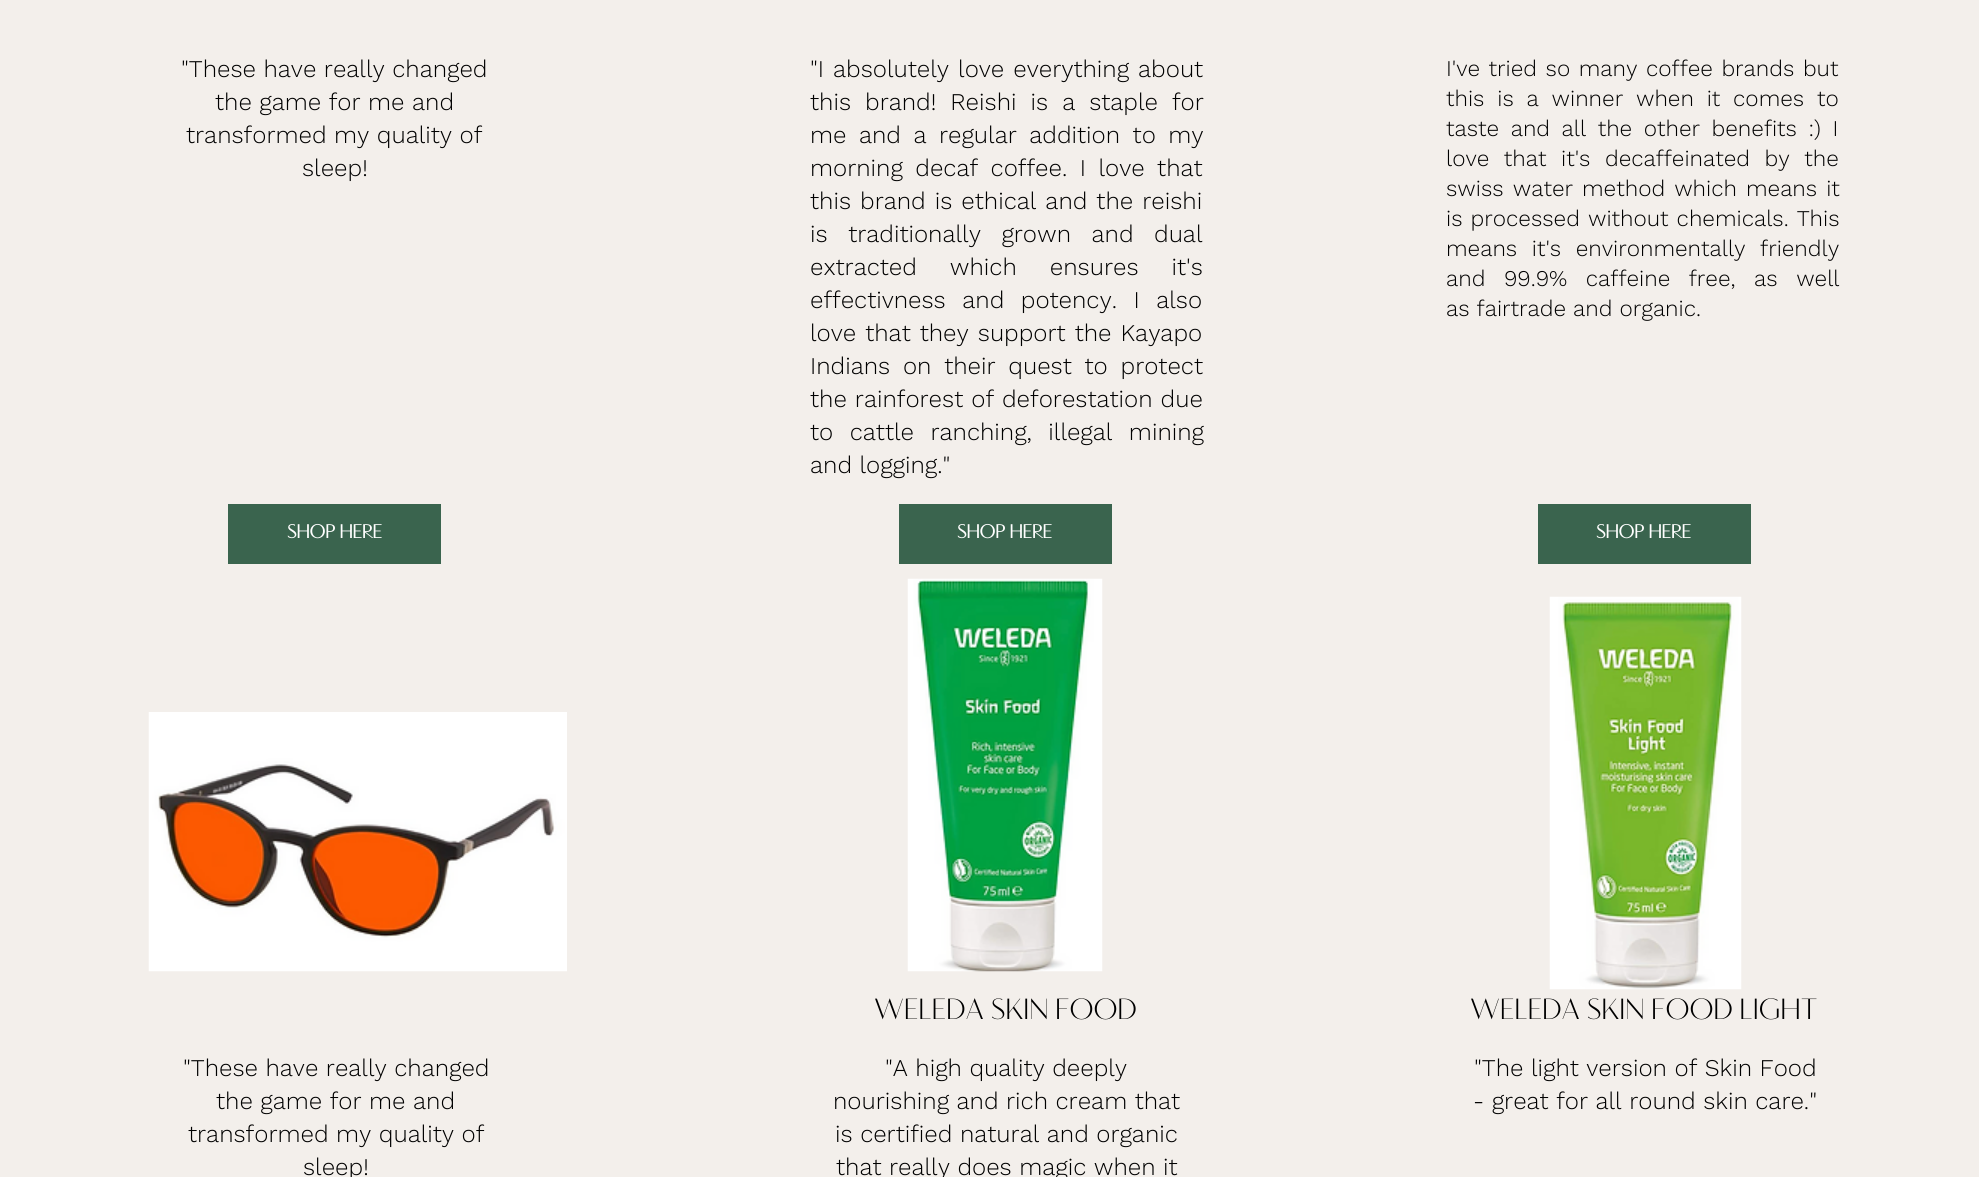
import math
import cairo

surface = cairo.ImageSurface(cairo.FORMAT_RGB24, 1979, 1177)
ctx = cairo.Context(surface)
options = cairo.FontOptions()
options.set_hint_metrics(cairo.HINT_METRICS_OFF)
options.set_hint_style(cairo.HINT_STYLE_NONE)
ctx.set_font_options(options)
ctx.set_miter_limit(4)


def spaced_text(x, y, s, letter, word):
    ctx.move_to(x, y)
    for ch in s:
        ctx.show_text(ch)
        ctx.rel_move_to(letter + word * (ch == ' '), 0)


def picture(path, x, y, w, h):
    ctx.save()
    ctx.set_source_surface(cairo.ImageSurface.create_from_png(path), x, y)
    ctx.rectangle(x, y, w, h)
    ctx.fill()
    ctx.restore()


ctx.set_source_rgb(0.953, 0.937, 0.918)
ctx.paint()
ctx.select_font_face("Work Sans Light")
ctx.set_font_size(24)
ctx.set_source_rgb(0, 0, 0)
ctx.move_to(181, 77)
ctx.show_text("\"These have really changed")
ctx.move_to(215, 110)
ctx.show_text("the game for me and")
ctx.move_to(186, 143)
ctx.show_text("transformed my quality of")
ctx.move_to(302, 176)
ctx.show_text("sleep!")
spaced_text(810, 77, "\"I absolutely love everything about", 0, 1.5)
spaced_text(810, 110, "this brand! Reishi is a staple for", 0, 6.5)
spaced_text(810, 143, "me and a regular addition to my", 0, 5)
spaced_text(810, 176, "morning decaf coffee. I love that", 0, 5)
spaced_text(810, 209, "this brand is ethical and the reishi", 0, 1.5)
spaced_text(810, 242, "is traditionally grown and dual", 0, 13)
spaced_text(810, 275, "extracted which ensures it's", 0, 25.5)
spaced_text(810, 308, "effectivness and potency. I also", 0, 9)
spaced_text(810, 341, "love that they support the Kayapo", 0, 1.5)
spaced_text(810, 374, "Indians on their quest to protect", 0, 5.25)
spaced_text(810, 407, "the rainforest of deforestation due", 0, 0.5)
spaced_text(810, 440, "to cattle ranching, illegal mining", 0, 9)
ctx.move_to(810, 473)
ctx.show_text("and logging.\"")
ctx.set_font_size(22.5)
spaced_text(1446, 76, "I've tried so many coffee brands but", 0, 1.5)
spaced_text(1446, 106, "this is a winner when it comes to", 0, 5.75)
spaced_text(1446, 136, "taste and all the other benefits :) I", 0, 4.5)
spaced_text(1446, 166, "love that it's decaffeinated by the", 0, 7.5)
spaced_text(1446, 196, "swiss water method which means it", 0, 2)
spaced_text(1446, 226, "is processed without chemicals. This", 0, 1)
spaced_text(1446, 256, "means it's environmentally friendly", 0, 7.5)
spaced_text(1446, 286, "and 99.9% caffeine free, as well", 0, 11.5)
ctx.move_to(1446, 316)
ctx.show_text("as fairtrade and organic.")
ctx.set_source_rgb(0.227, 0.392, 0.306)
ctx.rectangle(228, 504, 213, 60)
ctx.fill()
ctx.select_font_face("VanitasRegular", cairo.FONT_SLANT_NORMAL, cairo.FONT_WEIGHT_BOLD)
ctx.set_font_size(19.5)
ctx.set_source_rgb(1, 1, 1)
ctx.move_to(287, 538)
ctx.show_text("SHOP HERE")
ctx.set_source_rgb(0.227, 0.392, 0.306)
ctx.rectangle(899, 504, 213, 60)
ctx.fill()
ctx.set_source_rgb(1, 1, 1)
ctx.move_to(957, 538)
ctx.show_text("SHOP HERE")
ctx.set_source_rgb(0.227, 0.392, 0.306)
ctx.rectangle(1538, 504, 213, 60)
ctx.fill()
ctx.set_source_rgb(1, 1, 1)
ctx.move_to(1596, 538)
ctx.show_text("SHOP HERE")
picture("img1.png", 148, 712, 419, 260)
picture("img2.png", 907, 578, 196, 394)
picture("img3.png", 1549, 596, 193, 394)
ctx.select_font_face("VanitasRegular")
ctx.set_font_size(30)
ctx.set_source_rgb(0, 0, 0)
ctx.move_to(874, 1019)
ctx.show_text("WELEDA SKIN FOOD")
ctx.move_to(1470, 1019)
ctx.show_text("WELEDA SKIN FOOD LIGHT")
ctx.select_font_face("Work Sans Light")
ctx.set_font_size(24)
ctx.move_to(183, 1076)
ctx.show_text("\"These have really changed")
ctx.move_to(216, 1109)
ctx.show_text("the game for me and")
ctx.move_to(188, 1142)
ctx.show_text("transformed my quality of")
ctx.move_to(303, 1175)
ctx.show_text("sleep!")
ctx.move_to(885, 1076)
ctx.show_text("\"A high quality deeply")
ctx.move_to(833, 1109)
ctx.show_text("nourishing and rich cream that")
ctx.move_to(835, 1142)
ctx.show_text("is certified natural and organic")
ctx.move_to(836, 1175)
ctx.show_text("that really does magic when it")
ctx.move_to(1474, 1076)
ctx.show_text("\"The light version of Skin Food")
ctx.move_to(1473, 1109)
ctx.show_text("- great for all round skin care.\"")
surface.write_to_png("page.png")
